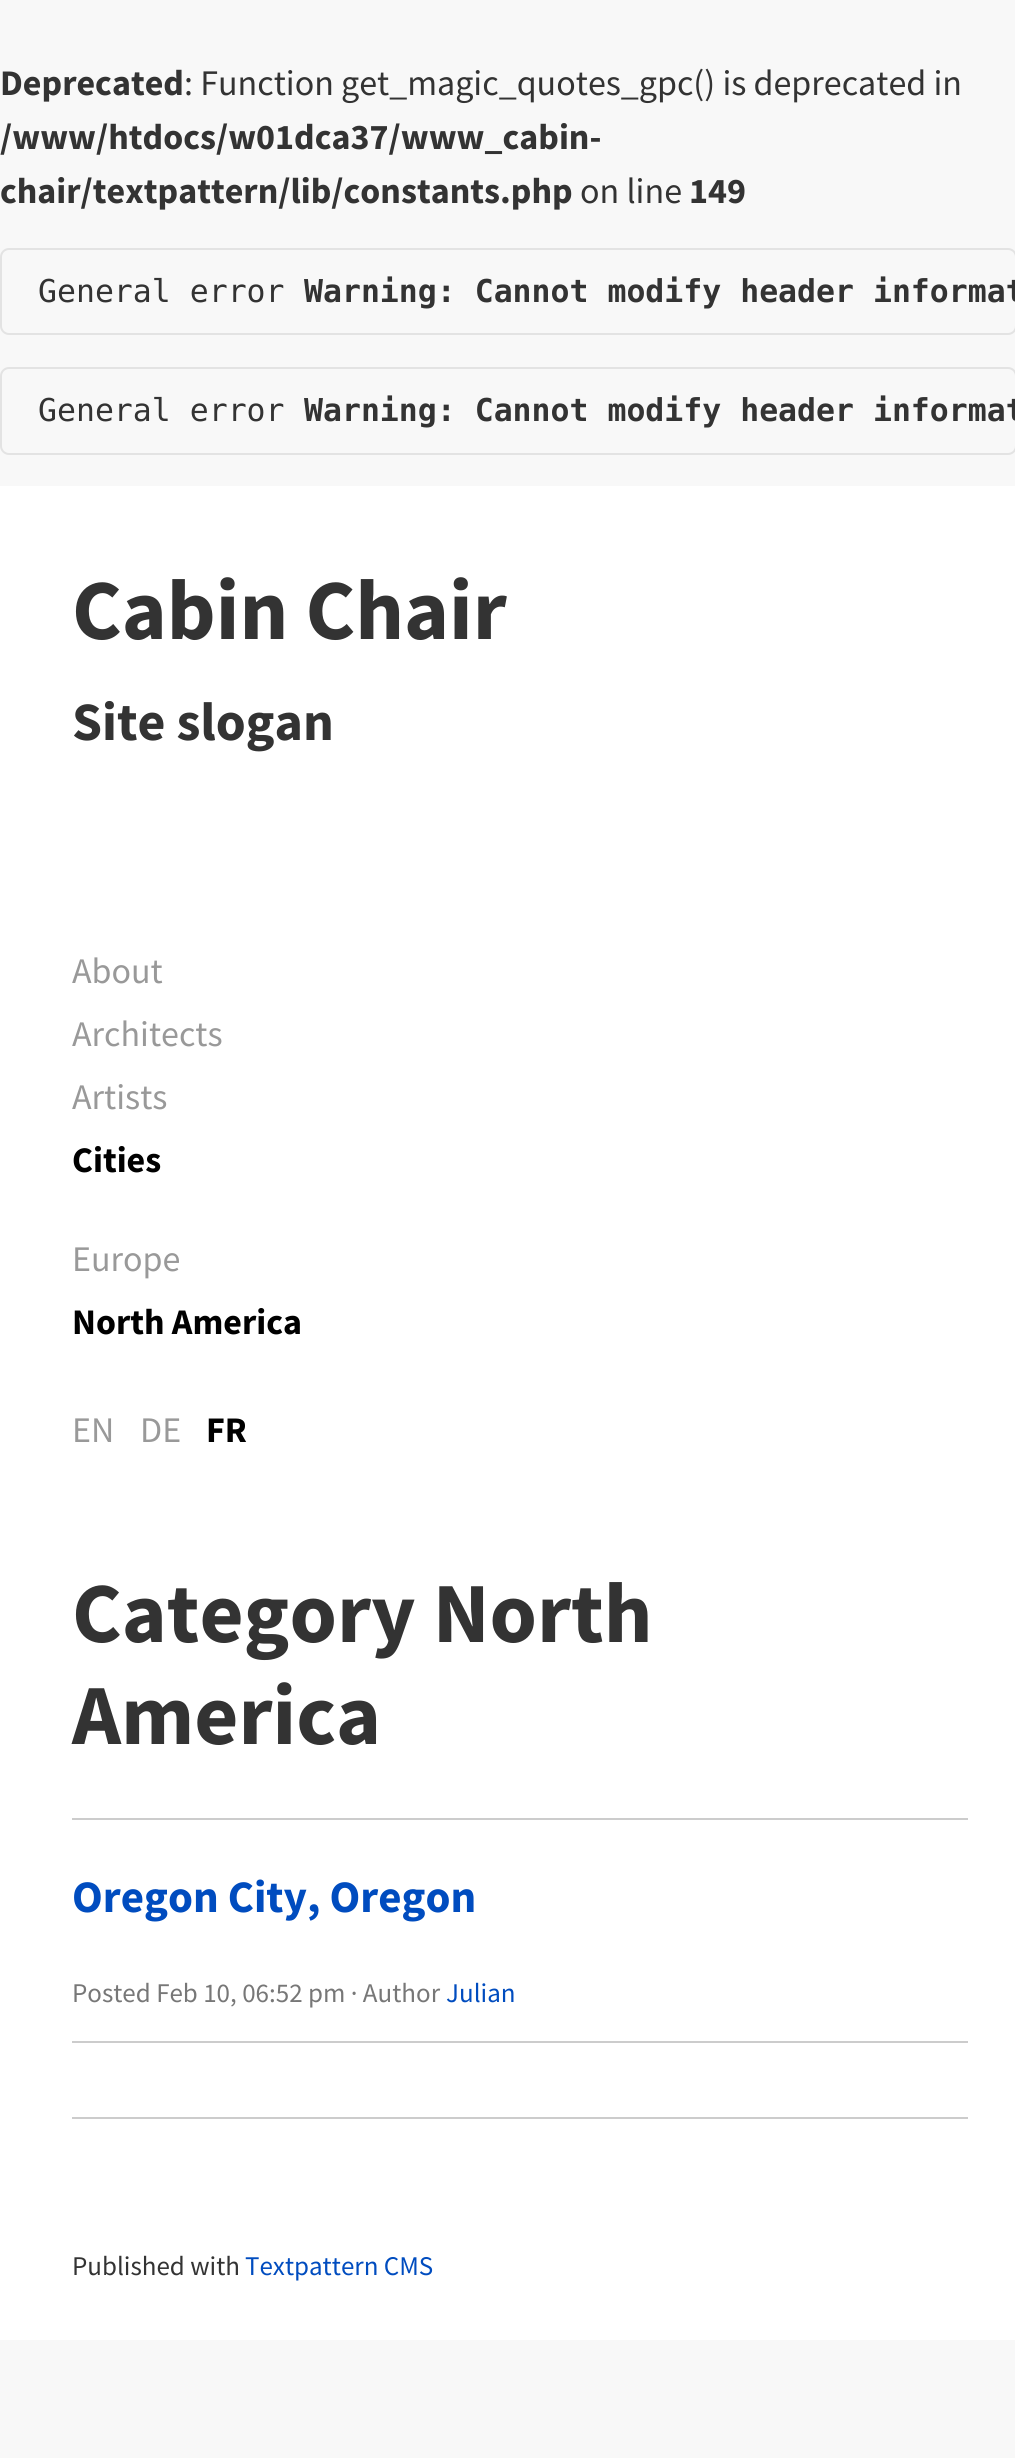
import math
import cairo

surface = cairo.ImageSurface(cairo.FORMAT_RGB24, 1015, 2458)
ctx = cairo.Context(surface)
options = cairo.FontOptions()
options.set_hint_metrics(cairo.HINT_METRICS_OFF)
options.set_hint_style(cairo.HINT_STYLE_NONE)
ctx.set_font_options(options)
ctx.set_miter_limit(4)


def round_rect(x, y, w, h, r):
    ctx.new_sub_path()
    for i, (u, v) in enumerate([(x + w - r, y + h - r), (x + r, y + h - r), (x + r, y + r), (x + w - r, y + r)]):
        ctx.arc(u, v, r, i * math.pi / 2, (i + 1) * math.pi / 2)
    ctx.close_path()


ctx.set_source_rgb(0.969, 0.969, 0.969)
ctx.paint()
ctx.select_font_face("Source Sans Pro", cairo.FONT_SLANT_NORMAL, cairo.FONT_WEIGHT_BOLD)
ctx.set_font_size(36)
ctx.set_source_rgb(0.2, 0.2, 0.2)
ctx.move_to(0, 95)
ctx.show_text("Deprecated")
ctx.select_font_face("Source Sans Pro")
ctx.move_to(184, 95)
ctx.show_text(": Function get_magic_quotes_gpc() is deprecated in")
ctx.select_font_face("Source Sans Pro", cairo.FONT_SLANT_NORMAL, cairo.FONT_WEIGHT_BOLD)
ctx.move_to(0, 149)
ctx.show_text("/www/htdocs/w01dca37/www_cabin-")
ctx.move_to(0, 203)
ctx.show_text("chair/textpattern/lib/constants.php")
ctx.select_font_face("Source Sans Pro")
ctx.move_to(580, 203)
ctx.show_text("on line")
ctx.select_font_face("Source Sans Pro", cairo.FONT_SLANT_NORMAL, cairo.FONT_WEIGHT_BOLD)
ctx.move_to(689, 203)
ctx.show_text("149")
round_rect(1, 249, 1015, 85, 8)
ctx.set_source_rgb(0.89, 0.89, 0.89)
ctx.stroke()
ctx.select_font_face("DejaVu Sans Mono")
ctx.set_font_size(31.5)
ctx.set_source_rgb(0.2, 0.2, 0.2)
ctx.move_to(38, 302)
ctx.show_text("General error")
ctx.select_font_face("DejaVu Sans Mono", cairo.FONT_SLANT_NORMAL, cairo.FONT_WEIGHT_BOLD)
ctx.move_to(304, 302)
ctx.show_text("Warning: Cannot modify header informat")
round_rect(1, 368, 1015, 86, 8)
ctx.set_source_rgb(0.89, 0.89, 0.89)
ctx.stroke()
ctx.select_font_face("DejaVu Sans Mono")
ctx.set_source_rgb(0.2, 0.2, 0.2)
ctx.move_to(38, 421)
ctx.show_text("General error")
ctx.select_font_face("DejaVu Sans Mono", cairo.FONT_SLANT_NORMAL, cairo.FONT_WEIGHT_BOLD)
ctx.move_to(304, 421)
ctx.show_text("Warning: Cannot modify header informat")
ctx.set_source_rgb(1, 1, 1)
ctx.rectangle(0, 486, 1015, 1854)
ctx.fill()
ctx.select_font_face("Source Sans Pro", cairo.FONT_SLANT_NORMAL, cairo.FONT_WEIGHT_BOLD)
ctx.set_font_size(85.5)
ctx.set_source_rgb(0.2, 0.2, 0.2)
ctx.move_to(72, 639)
ctx.show_text("Cabin Chair")
ctx.set_font_size(54)
ctx.move_to(72, 740)
ctx.show_text("Site slogan")
ctx.select_font_face("Source Sans Pro")
ctx.set_font_size(36)
ctx.set_source_rgb(0.6, 0.6, 0.6)
ctx.move_to(72, 983)
ctx.show_text("About")
ctx.move_to(72, 1046)
ctx.show_text("Architects")
ctx.move_to(72, 1109)
ctx.show_text("Artists")
ctx.select_font_face("Source Sans Pro", cairo.FONT_SLANT_NORMAL, cairo.FONT_WEIGHT_BOLD)
ctx.set_source_rgb(0, 0, 0)
ctx.move_to(72, 1172)
ctx.show_text("Cities")
ctx.select_font_face("Source Sans Pro")
ctx.set_source_rgb(0.6, 0.6, 0.6)
ctx.move_to(72, 1271)
ctx.show_text("Europe")
ctx.select_font_face("Source Sans Pro", cairo.FONT_SLANT_NORMAL, cairo.FONT_WEIGHT_BOLD)
ctx.set_source_rgb(0, 0, 0)
ctx.move_to(72, 1334)
ctx.show_text("North America")
ctx.select_font_face("Source Sans Pro")
ctx.set_source_rgb(0.6, 0.6, 0.6)
ctx.move_to(72, 1442)
ctx.show_text("EN")
ctx.move_to(140, 1442)
ctx.show_text("DE")
ctx.select_font_face("Source Sans Pro", cairo.FONT_SLANT_NORMAL, cairo.FONT_WEIGHT_BOLD)
ctx.set_source_rgb(0, 0, 0)
ctx.move_to(206, 1442)
ctx.show_text("FR")
ctx.set_source_rgb(0.8, 0.8, 0.8)
ctx.rectangle(72, 2117, 896, 2)
ctx.fill()
ctx.set_font_size(85.5)
ctx.set_source_rgb(0.2, 0.2, 0.2)
ctx.move_to(72, 1642)
ctx.show_text("Category North")
ctx.move_to(72, 1744)
ctx.show_text("America")
ctx.set_source_rgb(0.8, 0.8, 0.8)
ctx.rectangle(72, 1818, 896, 2)
ctx.fill()
ctx.rectangle(72, 2041, 896, 2)
ctx.fill()
ctx.set_font_size(45)
ctx.set_source_rgb(0, 0.298, 0.749)
ctx.move_to(72, 1912)
ctx.show_text("Oregon City, Oregon")
ctx.select_font_face("Source Sans Pro")
ctx.set_font_size(27)
ctx.set_source_rgb(0.467, 0.467, 0.467)
ctx.move_to(72, 2002)
ctx.show_text("Posted Feb 10, 06:52 pm · Author")
ctx.set_source_rgb(0, 0.298, 0.749)
ctx.move_to(446, 2002)
ctx.show_text("Julian")
ctx.set_source_rgb(0.2, 0.2, 0.2)
ctx.move_to(72, 2275)
ctx.show_text("Published with")
ctx.set_source_rgb(0, 0.298, 0.749)
ctx.move_to(245, 2275)
ctx.show_text("Textpattern CMS")
surface.write_to_png("page.png")
